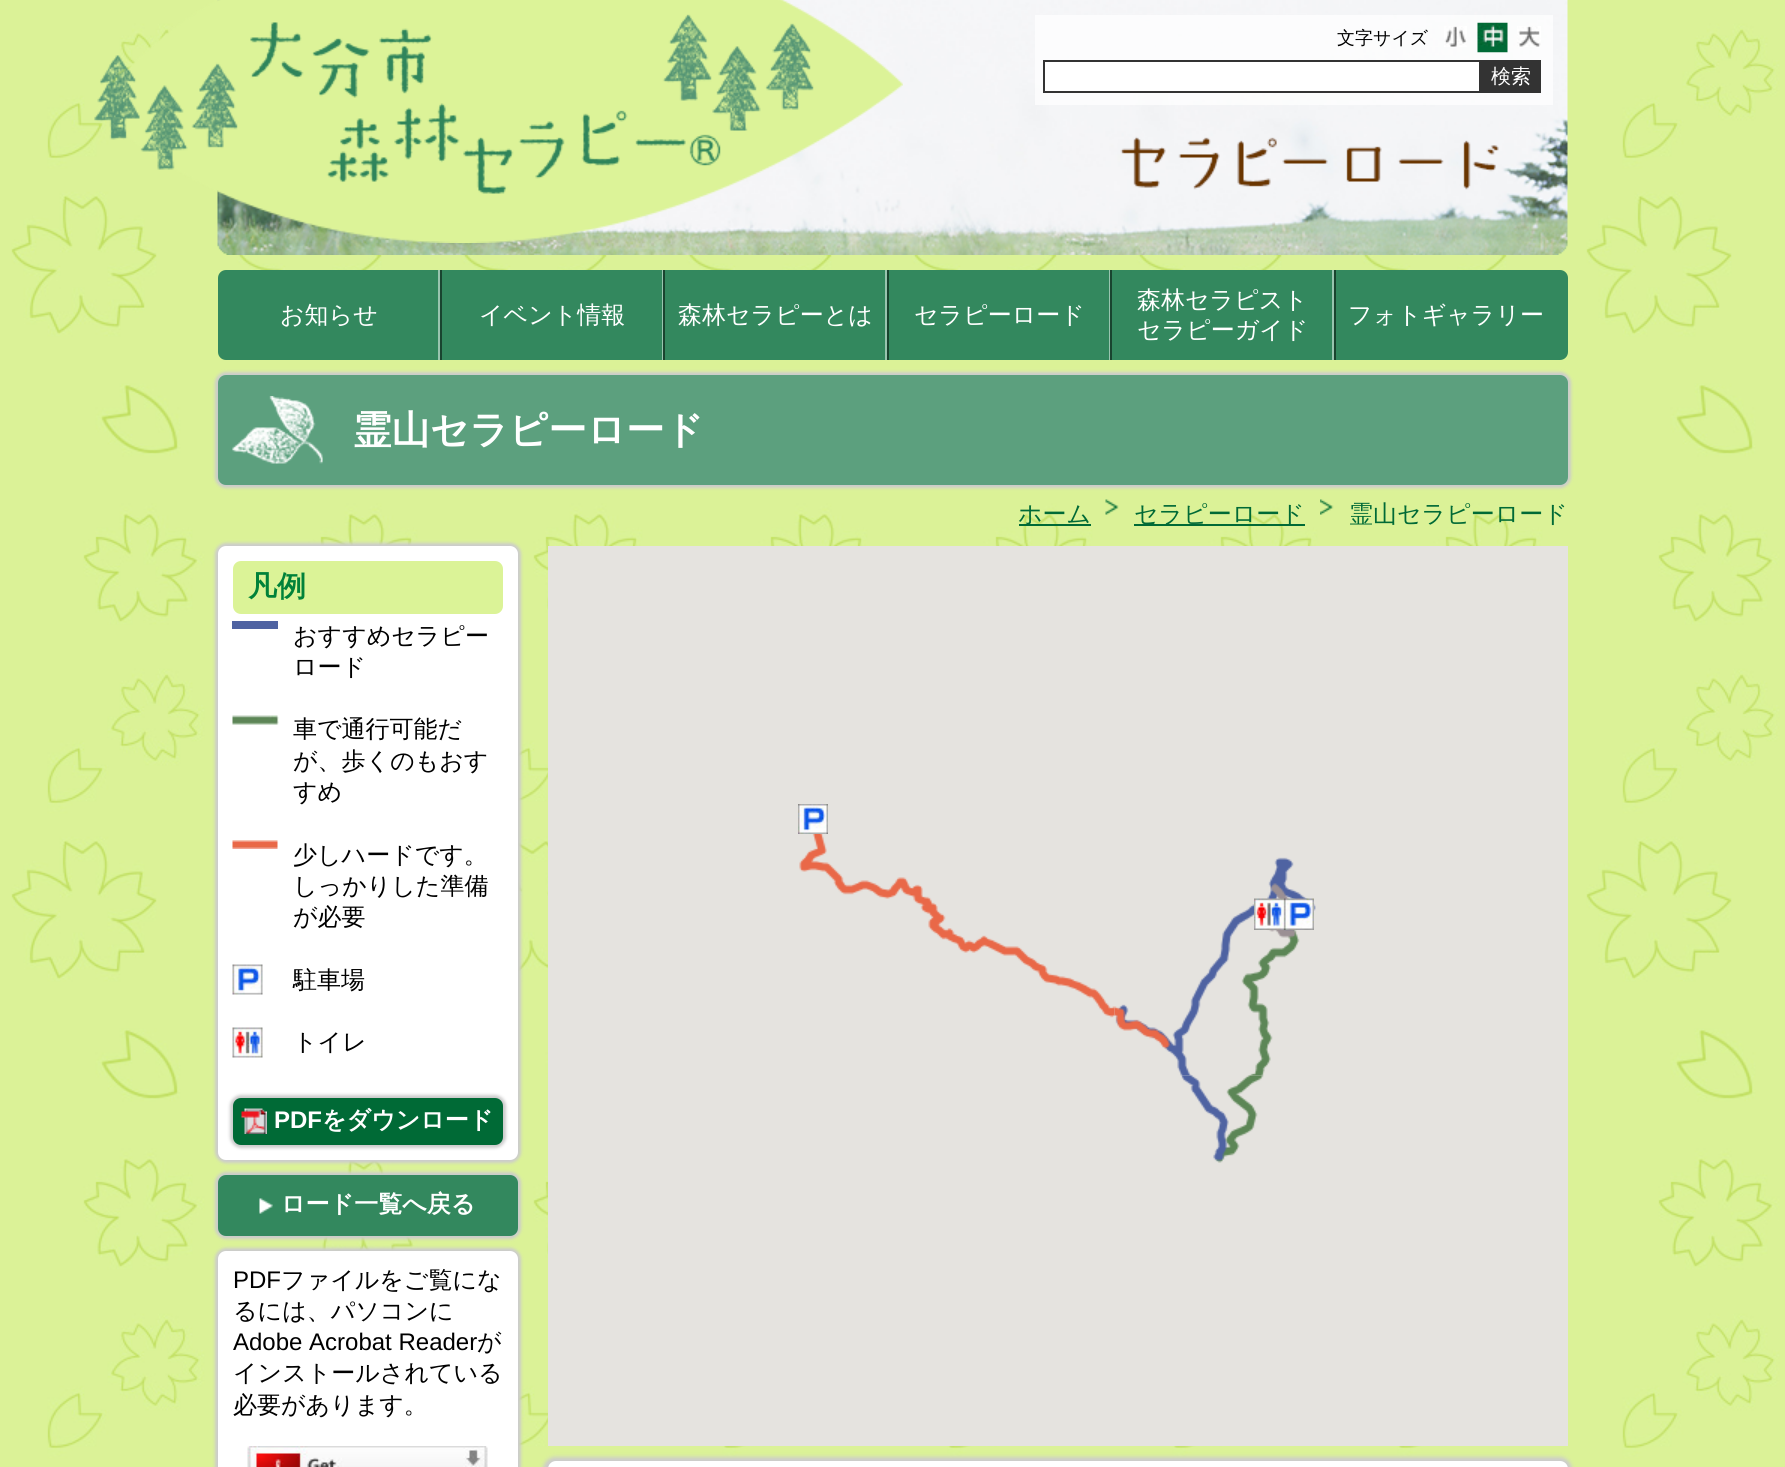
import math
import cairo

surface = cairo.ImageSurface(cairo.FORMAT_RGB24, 1785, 1467)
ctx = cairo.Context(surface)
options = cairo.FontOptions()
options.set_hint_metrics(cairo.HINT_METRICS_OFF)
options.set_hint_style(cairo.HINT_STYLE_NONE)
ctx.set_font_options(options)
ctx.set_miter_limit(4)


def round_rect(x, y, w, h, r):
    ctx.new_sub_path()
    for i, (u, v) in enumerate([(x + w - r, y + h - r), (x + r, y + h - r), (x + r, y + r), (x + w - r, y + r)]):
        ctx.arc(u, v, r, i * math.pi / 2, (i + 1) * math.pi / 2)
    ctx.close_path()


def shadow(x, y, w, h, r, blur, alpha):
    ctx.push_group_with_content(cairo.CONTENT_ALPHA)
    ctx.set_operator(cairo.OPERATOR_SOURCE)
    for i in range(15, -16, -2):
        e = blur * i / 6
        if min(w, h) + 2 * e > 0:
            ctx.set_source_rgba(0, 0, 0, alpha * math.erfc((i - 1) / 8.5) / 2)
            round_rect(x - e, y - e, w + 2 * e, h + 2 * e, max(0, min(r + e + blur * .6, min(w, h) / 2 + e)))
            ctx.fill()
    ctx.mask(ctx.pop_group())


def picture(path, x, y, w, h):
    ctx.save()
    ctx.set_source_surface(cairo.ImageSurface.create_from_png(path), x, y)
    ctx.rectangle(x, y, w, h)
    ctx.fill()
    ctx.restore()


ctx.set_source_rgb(1, 1, 1)
ctx.paint()
picture("img1.png", 0, 0, 1785, 1467)
picture("img2.png", 217, 0, 1351, 255)
picture("img3.png", 94, 0, 809, 243)
ctx.set_source_rgba(1, 1, 1, 0.7)
ctx.rectangle(1035, 15, 518, 90)
ctx.fill()
ctx.select_font_face("WenQuanYi Zen Hei Medium")
ctx.set_font_size(18)
ctx.set_source_rgb(0, 0, 0)
ctx.move_to(1337, 44)
ctx.show_text("文字サイズ")
picture("img4.png", 1444, 26, 23, 21)
picture("img5.png", 1477, 22, 31, 31)
picture("img6.png", 1517, 26, 24, 21)
ctx.set_source_rgb(1, 1, 1)
ctx.rectangle(1044, 61, 436, 31)
ctx.fill_preserve()
ctx.set_source_rgb(0.2, 0.2, 0.2)
ctx.stroke()
ctx.rectangle(1481, 60, 60, 33)
ctx.fill()
ctx.set_font_size(20)
ctx.set_source_rgb(1, 1, 1)
ctx.move_to(1491, 83)
ctx.show_text("検索")
ctx.set_source_rgb(0.2, 0.533, 0.369)
round_rect(218, 270, 1350, 90, 8)
ctx.fill()
ctx.set_source_rgb(0.6, 0.769, 0.686)
ctx.rectangle(438, 270, 2, 90)
ctx.fill()
ctx.set_font_size(24)
ctx.set_source_rgb(1, 1, 1)
ctx.move_to(280, 323)
ctx.show_text("お知らせ")
ctx.set_source_rgb(0.6, 0.769, 0.686)
ctx.rectangle(662, 270, 1, 90)
ctx.fill()
ctx.set_source_rgb(0.098, 0.267, 0.184)
ctx.rectangle(440, 270, 2, 90)
ctx.fill()
ctx.set_source_rgb(1, 1, 1)
ctx.move_to(479, 323)
ctx.show_text("イベント情報")
ctx.set_source_rgb(0.6, 0.769, 0.686)
ctx.rectangle(885, 270, 2, 90)
ctx.fill()
ctx.set_source_rgb(0.098, 0.267, 0.184)
ctx.rectangle(663, 270, 2, 90)
ctx.fill()
ctx.set_source_rgb(1, 1, 1)
ctx.move_to(678, 323)
ctx.show_text("森林セラピーとは")
ctx.set_source_rgb(0.6, 0.769, 0.686)
ctx.rectangle(1109, 270, 1, 90)
ctx.fill()
ctx.set_source_rgb(0.098, 0.267, 0.184)
ctx.rectangle(887, 270, 2, 90)
ctx.fill()
ctx.set_source_rgb(1, 1, 1)
ctx.move_to(914, 323)
ctx.show_text("セラピーロード")
ctx.set_source_rgb(0.6, 0.769, 0.686)
ctx.rectangle(1332, 270, 2, 90)
ctx.fill()
ctx.set_source_rgb(0.098, 0.267, 0.184)
ctx.rectangle(1110, 270, 2, 90)
ctx.fill()
ctx.set_source_rgb(1, 1, 1)
ctx.move_to(1137, 308)
ctx.show_text("森林セラピスト")
ctx.move_to(1137, 338)
ctx.show_text("セラピーガイド")
ctx.set_source_rgb(0.098, 0.267, 0.184)
ctx.rectangle(1334, 270, 2, 90)
ctx.fill()
ctx.set_source_rgb(1, 1, 1)
ctx.move_to(1348, 323)
ctx.show_text("フォトギャラリー")
ctx.set_source_rgb(0.8, 0.8, 0.8)
shadow(215, 372, 1356, 116, 11, 1.5, 1)
ctx.set_source_rgb(0.361, 0.627, 0.494)
round_rect(218, 375, 1350, 110, 8)
ctx.fill()
picture("img7.png", 232, 396, 91, 68)
ctx.select_font_face("WenQuanYi Zen Hei", cairo.FONT_SLANT_NORMAL, cairo.FONT_WEIGHT_BOLD)
ctx.set_font_size(38.5)
ctx.set_source_rgb(1, 1, 1)
ctx.move_to(353, 443)
ctx.show_text("霊山セラピーロード")
ctx.set_source_rgb(0, 0.416, 0.212)
ctx.rectangle(1019, 524, 72, 2)
ctx.fill()
ctx.select_font_face("WenQuanYi Zen Hei Medium")
ctx.set_font_size(24)
ctx.move_to(1018, 522)
ctx.show_text("ホーム")
picture("img8.png", 1105, 499, 14, 16)
ctx.rectangle(1134, 524, 171, 2)
ctx.fill()
ctx.move_to(1134, 522)
ctx.show_text("セラピーロード")
picture("img9.png", 1320, 499, 14, 16)
ctx.move_to(1349, 522)
ctx.show_text("霊山セラピーロード")
ctx.set_source_rgb(0.8, 0.8, 0.8)
shadow(215, 543, 306, 620, 11, 1.5, 1)
ctx.set_source_rgb(1, 1, 1)
round_rect(218, 546, 300, 614, 8)
ctx.fill()
ctx.set_source_rgb(0.859, 0.953, 0.592)
round_rect(233, 561, 270, 53, 8)
ctx.fill()
ctx.select_font_face("WenQuanYi Zen Hei", cairo.FONT_SLANT_NORMAL, cairo.FONT_WEIGHT_BOLD)
ctx.set_font_size(29)
ctx.set_source_rgb(0, 0.51, 0.224)
ctx.move_to(248, 596)
ctx.show_text("凡例")
ctx.set_source_rgb(0.31, 0.388, 0.635)
ctx.rectangle(232, 621, 46, 8)
ctx.fill()
ctx.select_font_face("WenQuanYi Zen Hei Medium")
ctx.set_font_size(24)
ctx.set_source_rgb(0, 0, 0)
ctx.move_to(293, 644)
ctx.show_text("おすすめセラピー")
ctx.move_to(293, 675)
ctx.show_text("ロード")
picture("img10.png", 232, 715, 47, 10)
ctx.move_to(293, 737)
ctx.show_text("車で通行可能だ")
ctx.move_to(293, 769)
ctx.show_text("が、歩くのもおす")
ctx.move_to(293, 800)
ctx.show_text("すめ")
picture("img11.png", 232, 840, 46, 9)
ctx.move_to(293, 863)
ctx.show_text("少しハードです。")
ctx.move_to(293, 894)
ctx.show_text("しっかりした準備")
ctx.move_to(293, 925)
ctx.show_text("が必要")
picture("img12.png", 232, 964, 31, 31)
ctx.move_to(293, 988)
ctx.show_text("駐車場")
picture("img13.png", 232, 1027, 31, 31)
ctx.move_to(293, 1050)
ctx.show_text("トイレ")
ctx.set_source_rgb(0.8, 0.8, 0.8)
shadow(230, 1095, 276, 53, 11, 1.5, 1)
ctx.set_source_rgb(0, 0.416, 0.212)
round_rect(233, 1098, 270, 47, 8)
ctx.fill()
picture("img14.png", 241, 1108, 26, 26)
ctx.select_font_face("Liberation Sans", cairo.FONT_SLANT_NORMAL, cairo.FONT_WEIGHT_BOLD)
ctx.set_source_rgb(1, 1, 1)
ctx.move_to(274, 1128)
ctx.show_text("PDF")
ctx.select_font_face("WenQuanYi Zen Hei", cairo.FONT_SLANT_NORMAL, cairo.FONT_WEIGHT_BOLD)
ctx.move_to(322, 1128)
ctx.show_text("をダウンロード")
ctx.set_source_rgb(0.8, 0.8, 0.8)
shadow(215, 1172, 306, 67, 11, 1.5, 1)
ctx.set_source_rgb(0.2, 0.533, 0.369)
round_rect(218, 1175, 300, 61, 8)
ctx.fill()
picture("img15.png", 259, 1198, 14, 16)
ctx.set_source_rgb(1, 1, 1)
ctx.move_to(281, 1212)
ctx.show_text("ロード一覧へ戻る")
ctx.set_source_rgb(0.8, 0.8, 0.8)
shadow(215, 1248, 306, 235, 11, 1.5, 1)
ctx.set_source_rgb(1, 1, 1)
round_rect(218, 1251, 300, 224, 8)
ctx.fill()
ctx.select_font_face("Liberation Sans")
ctx.set_source_rgb(0, 0, 0)
ctx.move_to(233, 1288)
ctx.show_text("PDF")
ctx.select_font_face("WenQuanYi Zen Hei Medium")
ctx.move_to(281, 1288)
ctx.show_text("ファイルをご覧にな")
ctx.move_to(233, 1319)
ctx.show_text("るには、パソコンに")
ctx.select_font_face("Liberation Sans")
ctx.move_to(233, 1350)
ctx.show_text("Adobe Acrobat Reader")
ctx.select_font_face("WenQuanYi Zen Hei Medium")
ctx.move_to(477, 1350)
ctx.show_text("が")
ctx.move_to(233, 1381)
ctx.show_text("インストールされている")
ctx.move_to(233, 1413)
ctx.show_text("必要があります。")
picture("img16.png", 247, 1446, 241, 21)
ctx.set_source_rgb(0.898, 0.89, 0.875)
ctx.rectangle(548, 546, 1020, 900)
ctx.fill()
picture("img17.png", 798, 804, 30, 30)
picture("img20.png", 1114, 857, 202, 219)
picture("img18.png", 1254, 898, 60, 32)
picture("img19.png", 799, 834, 316, 184)
picture("img21.png", 1181, 1075, 83, 88)
ctx.set_source_rgb(0.8, 0.8, 0.8)
shadow(543, 1457, 1029, 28, 12, 2, 1)
ctx.set_source_rgb(1, 1, 1)
round_rect(548, 1461, 1020, 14, 8)
ctx.fill()
surface.write_to_png("page.png")
